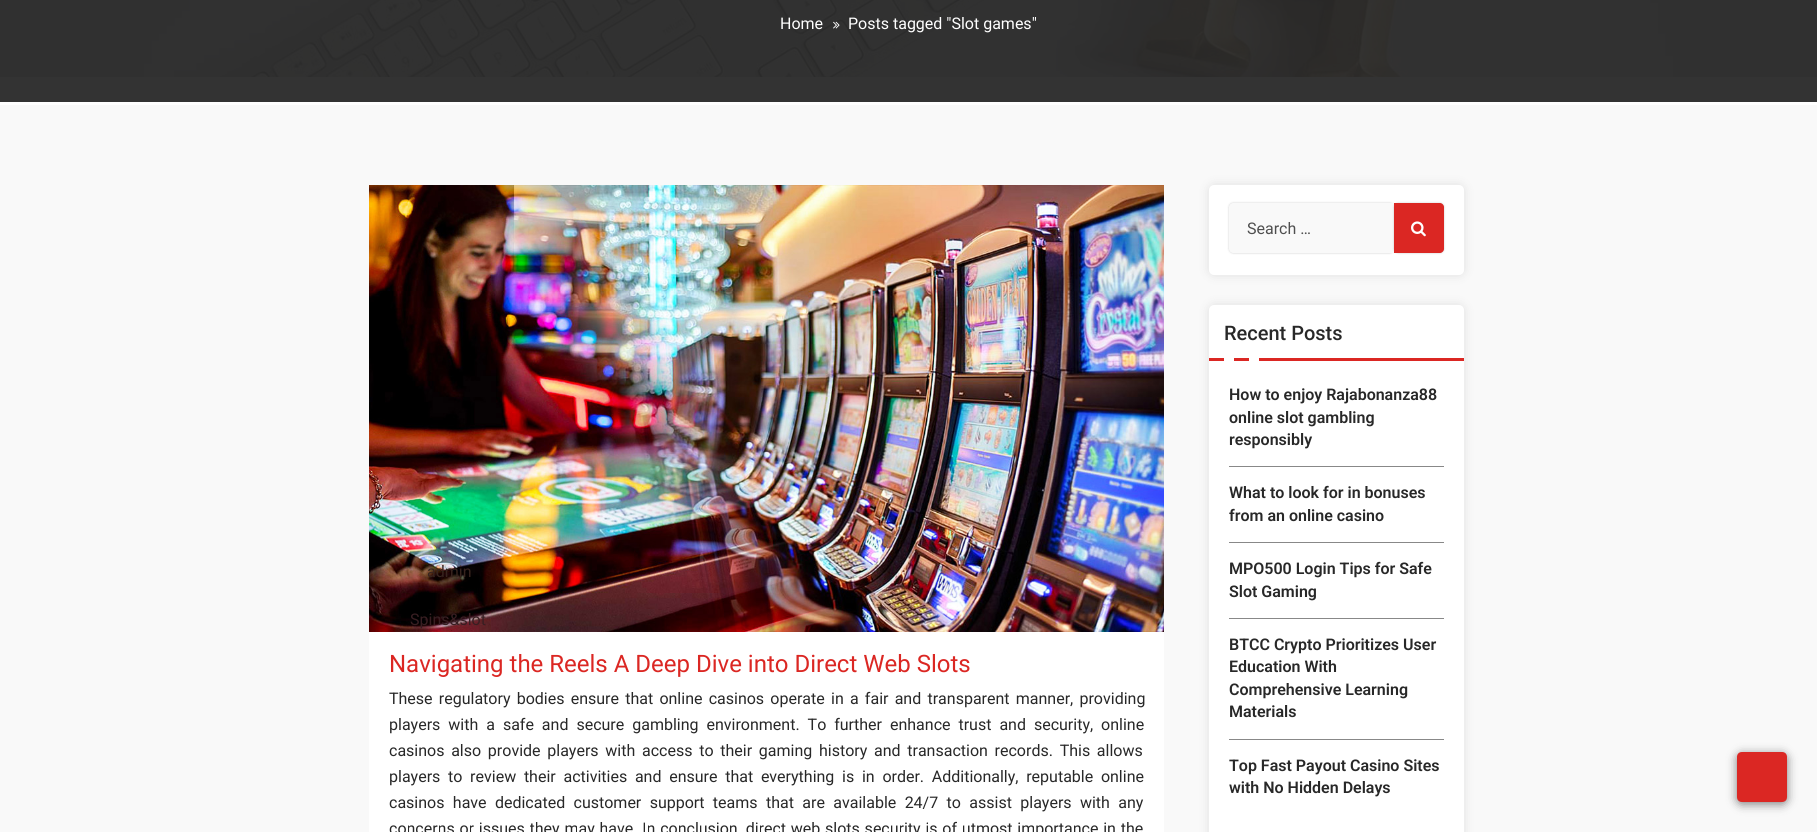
import math
import cairo

surface = cairo.ImageSurface(cairo.FORMAT_RGB24, 1817, 832)
ctx = cairo.Context(surface)
options = cairo.FontOptions()
options.set_hint_metrics(cairo.HINT_METRICS_OFF)
options.set_hint_style(cairo.HINT_STYLE_NONE)
ctx.set_font_options(options)
ctx.set_miter_limit(4)


def spaced_text(x, y, s, letter, word):
    ctx.move_to(x, y)
    for ch in s:
        ctx.show_text(ch)
        ctx.rel_move_to(letter + word * (ch == ' '), 0)


def round_rect(x, y, w, h, r):
    ctx.new_sub_path()
    for i, (u, v) in enumerate([(x + w - r, y + h - r), (x + r, y + h - r), (x + r, y + r), (x + w - r, y + r)]):
        ctx.arc(u, v, r, i * math.pi / 2, (i + 1) * math.pi / 2)
    ctx.close_path()


def shadow(x, y, w, h, r, blur, alpha):
    ctx.push_group_with_content(cairo.CONTENT_ALPHA)
    ctx.set_operator(cairo.OPERATOR_SOURCE)
    for i in range(15, -16, -2):
        e = blur * i / 6
        if min(w, h) + 2 * e > 0:
            ctx.set_source_rgba(0, 0, 0, alpha * math.erfc((i - 1) / 8.5) / 2)
            round_rect(x - e, y - e, w + 2 * e, h + 2 * e, max(0, min(r + e + blur * .6, min(w, h) / 2 + e)))
            ctx.fill()
    ctx.mask(ctx.pop_group())


def picture(path, x, y, w, h):
    ctx.save()
    ctx.set_source_surface(cairo.ImageSurface.create_from_png(path), x, y)
    ctx.rectangle(x, y, w, h)
    ctx.fill()
    ctx.restore()


ctx.set_source_rgb(1, 1, 1)
ctx.paint()
picture("img1.png", 0, 0, 1817, 77)
ctx.select_font_face("Roboto")
ctx.set_font_size(16)
ctx.set_source_rgb(1, 1, 1)
ctx.move_to(780, 29)
ctx.show_text("Home")
picture("img2.png", 833, 21, 7, 8)
ctx.move_to(848, 29)
ctx.show_text("Posts tagged \"Slot games\"")
ctx.set_source_rgb(0.2, 0.2, 0.2)
ctx.rectangle(0, 77, 1817, 25)
ctx.fill()
ctx.set_source_rgb(0.976, 0.976, 0.976)
ctx.rectangle(0, 105, 1817, 727)
ctx.fill()
ctx.set_source_rgb(1, 1, 1)
ctx.rectangle(369, 632, 795, 200)
ctx.fill()
picture("img3.png", 369, 185, 795, 447)
ctx.set_source_rgb(0.216, 0.141, 0.118)
ctx.move_to(427, 577)
ctx.show_text("admin")
ctx.set_source_rgb(0.22, 0.118, 0.133)
ctx.move_to(410, 625)
ctx.show_text("Spins&slot")
ctx.set_font_size(24)
ctx.set_source_rgb(0.859, 0.153, 0.137)
ctx.move_to(389, 672)
ctx.show_text("Navigating the Reels A Deep Dive into Direct Web Slots")
ctx.set_font_size(16)
ctx.set_source_rgb(0.157, 0.157, 0.157)
spaced_text(389, 704, "These regulatory bodies ensure that online casinos operate in a fair and transparent manner, providing", 0, 2.25)
spaced_text(389, 730, "players with a safe and secure gambling environment. To further enhance trust and security, online", 0, 4)
spaced_text(389, 756, "casinos also provide players with access to their gaming history and transaction records. This allows", 0, 2.75)
spaced_text(389, 782, "players to review their activities and ensure that everything is in order. Additionally, reputable online", 0, 3.75)
spaced_text(389, 808, "casinos have dedicated customer support teams that are available 24/7 to assist players with any", 0, 4.4)
spaced_text(389, 834, "concerns or issues they may have. In conclusion, direct web slots security is of utmost importance in the", 0, 0.8)
ctx.set_source_rgb(0, 0, 0)
shadow(1210, 186, 253, 88, 4, 6, 0.12)
ctx.set_source_rgb(1, 1, 1)
round_rect(1209, 185, 255, 90, 5)
ctx.fill()
ctx.set_source_rgb(0.027, 0.027, 0.024)
shadow(1229, 203, 165, 50, 4, 1, 0.2)
ctx.set_source_rgb(0.976, 0.976, 0.976)
ctx.new_path()
ctx.move_to(1233, 203)
ctx.line_to(1394, 203)
ctx.line_to(1394, 253)
ctx.line_to(1233, 253)
ctx.curve_to(1231, 253, 1229, 251, 1229, 249)
ctx.line_to(1229, 207)
ctx.curve_to(1229, 205, 1231, 203, 1233, 203)
ctx.close_path()
ctx.fill()
ctx.set_source_rgb(0.31, 0.31, 0.31)
ctx.move_to(1247, 234)
ctx.show_text("Search …")
ctx.set_source_rgb(0.027, 0.027, 0.024)
shadow(1394, 203, 50, 50, 4, 1, 0.2)
ctx.set_source_rgb(0.859, 0.153, 0.137)
ctx.new_path()
ctx.move_to(1394, 203)
ctx.line_to(1440, 203)
ctx.curve_to(1442, 203, 1444, 205, 1444, 207)
ctx.line_to(1444, 249)
ctx.curve_to(1444, 251, 1442, 253, 1440, 253)
ctx.line_to(1394, 253)
ctx.close_path()
ctx.fill()
picture("img4.png", 1411, 221, 15, 16)
ctx.set_source_rgb(0, 0, 0)
shadow(1210, 306, 253, 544, 4, 6, 0.12)
ctx.set_source_rgb(1, 1, 1)
round_rect(1209, 305, 255, 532, 5)
ctx.fill()
ctx.select_font_face("Roboto Medium")
ctx.set_font_size(20)
ctx.set_source_rgb(0.157, 0.157, 0.157)
ctx.move_to(1224, 340)
ctx.show_text("Recent Posts")
ctx.set_source_rgb(0.859, 0.153, 0.137)
ctx.rectangle(1209, 358, 255, 3)
ctx.fill()
ctx.set_source_rgb(1, 1, 1)
ctx.rectangle(1249, 358, 10, 3)
ctx.fill()
ctx.rectangle(1224, 358, 10, 3)
ctx.fill()
ctx.set_source_rgb(0.533, 0.533, 0.533)
ctx.rectangle(1229, 466, 215, 1)
ctx.fill()
ctx.select_font_face("Roboto SemiBold")
ctx.set_font_size(16)
ctx.set_source_rgb(0.157, 0.157, 0.157)
ctx.move_to(1229, 400)
ctx.show_text("How to enjoy Rajabonanza88")
ctx.move_to(1229, 423)
ctx.show_text("online slot gambling")
ctx.move_to(1229, 445)
ctx.show_text("responsibly")
ctx.set_source_rgb(0.533, 0.533, 0.533)
ctx.rectangle(1229, 542, 215, 1)
ctx.fill()
ctx.set_source_rgb(0.157, 0.157, 0.157)
ctx.move_to(1229, 498)
ctx.show_text("What to look for in bonuses")
ctx.move_to(1229, 521)
ctx.show_text("from an online casino")
ctx.set_source_rgb(0.533, 0.533, 0.533)
ctx.rectangle(1229, 618, 215, 1)
ctx.fill()
ctx.set_source_rgb(0.157, 0.157, 0.157)
ctx.move_to(1229, 574)
ctx.show_text("MPO500 Login Tips for Safe")
ctx.move_to(1229, 597)
ctx.show_text("Slot Gaming")
ctx.set_source_rgb(0.533, 0.533, 0.533)
ctx.rectangle(1229, 739, 215, 1)
ctx.fill()
ctx.set_source_rgb(0.157, 0.157, 0.157)
ctx.move_to(1229, 650)
ctx.show_text("BTCC Crypto Prioritizes User")
ctx.move_to(1229, 672)
ctx.show_text("Education With")
ctx.move_to(1229, 695)
ctx.show_text("Comprehensive Learning")
ctx.move_to(1229, 717)
ctx.show_text("Materials")
ctx.move_to(1229, 771)
ctx.show_text("Top Fast Payout Casino Sites")
ctx.move_to(1229, 793)
ctx.show_text("with No Hidden Delays")
ctx.set_source_rgb(0, 0, 0)
shadow(1737, 754, 50, 50, 5, 5, 0.5)
ctx.set_source_rgb(0.859, 0.153, 0.137)
ctx.new_path()
ctx.move_to(1782, 802)
ctx.line_to(1742, 802)
ctx.curve_to(1739, 802, 1737, 800, 1737, 797)
ctx.line_to(1737, 757)
ctx.curve_to(1737, 754, 1739, 752, 1742, 752)
ctx.line_to(1782, 752)
ctx.curve_to(1785, 752, 1787, 754, 1787, 757)
ctx.line_to(1787, 797)
ctx.curve_to(1787, 800, 1785, 802, 1782, 802)
ctx.close_path()
ctx.fill()
surface.write_to_png("page.png")
